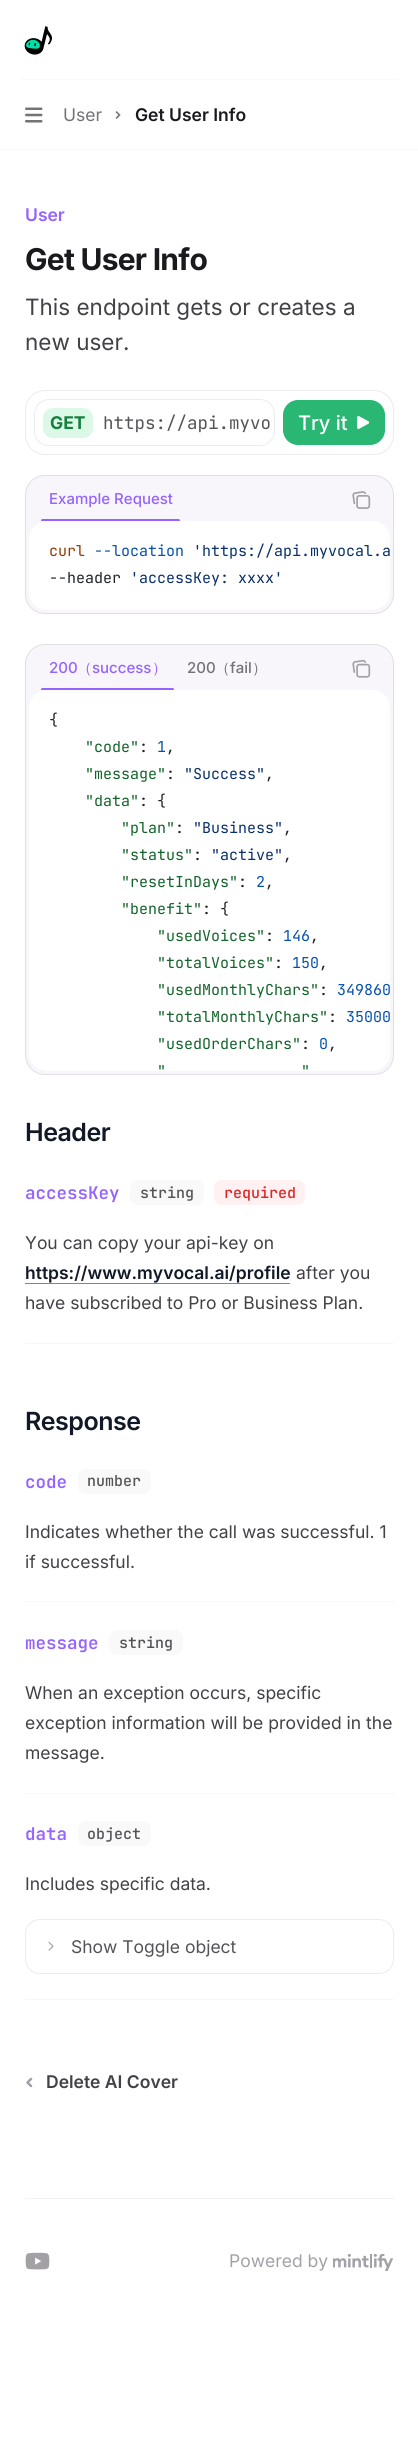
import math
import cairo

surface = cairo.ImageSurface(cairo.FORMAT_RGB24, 418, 2464)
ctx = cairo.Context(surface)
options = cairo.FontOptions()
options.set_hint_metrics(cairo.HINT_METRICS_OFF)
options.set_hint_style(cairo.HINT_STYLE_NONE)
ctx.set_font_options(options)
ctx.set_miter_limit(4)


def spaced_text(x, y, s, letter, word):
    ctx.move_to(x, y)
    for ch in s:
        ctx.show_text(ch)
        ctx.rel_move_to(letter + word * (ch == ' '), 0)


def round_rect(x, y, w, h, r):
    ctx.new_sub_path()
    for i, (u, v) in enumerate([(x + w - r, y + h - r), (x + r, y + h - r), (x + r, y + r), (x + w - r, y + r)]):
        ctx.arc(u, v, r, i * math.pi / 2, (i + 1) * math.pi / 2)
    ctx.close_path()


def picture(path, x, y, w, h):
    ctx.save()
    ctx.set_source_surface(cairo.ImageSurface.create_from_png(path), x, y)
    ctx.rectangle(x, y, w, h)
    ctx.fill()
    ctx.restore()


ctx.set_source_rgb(1, 1, 1)
ctx.paint()
ctx.set_source_rgb(0.973, 0.973, 0.973)
ctx.rectangle(20, 79, 379, 1)
ctx.fill()
picture("img1.png", 24, 26, 28, 29)
picture("img2.png", 25, 107, 18, 16)
ctx.select_font_face("Inter")
ctx.set_font_size(17.5)
ctx.set_source_rgb(0.455, 0.451, 0.467)
ctx.move_to(63, 121)
ctx.show_text("User")
ctx.new_path()
ctx.move_to(116.5, 112)
ctx.line_to(119.5, 115)
ctx.line_to(116.5, 118)
ctx.set_line_width(1.6)
ctx.set_line_cap(cairo.LINE_CAP_ROUND)
ctx.stroke()
ctx.select_font_face("Inter SemiBold")
ctx.set_source_rgb(0.106, 0.098, 0.118)
ctx.move_to(135, 121)
ctx.show_text("Get User Info")
ctx.set_source_rgb(0.973, 0.973, 0.973)
ctx.rectangle(0, 149, 418, 1)
ctx.fill()
ctx.set_source_rgb(0.584, 0.388, 1)
ctx.move_to(25, 221)
ctx.show_text("User")
ctx.select_font_face("Inter", cairo.FONT_SLANT_NORMAL, cairo.FONT_WEIGHT_BOLD)
ctx.set_font_size(30)
ctx.set_source_rgb(0.106, 0.098, 0.118)
spaced_text(25, 270, "Get User Info", -0.75, 0)
ctx.select_font_face("Inter")
ctx.set_font_size(22.5)
ctx.set_source_rgb(0.263, 0.255, 0.275)
ctx.move_to(25, 315)
ctx.show_text("This endpoint gets or creates a")
ctx.move_to(25, 350)
ctx.show_text("new user.")
round_rect(25.5, 390.5, 368, 64, 19.5)
ctx.set_source_rgb(0.922, 0.918, 0.933)
ctx.set_line_width(1)
ctx.set_line_cap(cairo.LINE_CAP_BUTT)
ctx.stroke()
round_rect(34.5, 399.5, 240, 46, 14.5)
ctx.stroke()
ctx.set_source_rgb(0.859, 0.973, 0.902)
round_rect(43, 408, 50, 30, 10)
ctx.fill()
ctx.select_font_face("Inter", cairo.FONT_SLANT_NORMAL, cairo.FONT_WEIGHT_BOLD)
ctx.set_font_size(17.5)
ctx.set_source_rgb(0.082, 0.502, 0.239)
ctx.move_to(50, 429)
ctx.show_text("GET")
ctx.select_font_face("JetBrains Mono")
ctx.set_source_rgb(0.329, 0.325, 0.341)
ctx.move_to(103, 429)
ctx.show_text("https://api.myvo")
ctx.set_source_rgb(0.165, 0.714, 0.451)
round_rect(283, 400, 102, 45, 15)
ctx.fill()
ctx.select_font_face("Inter Medium")
ctx.set_font_size(20)
ctx.set_source_rgb(1, 1, 1)
ctx.move_to(298, 430)
ctx.show_text("Try it")
picture("img3.png", 357, 416, 12, 13)
ctx.set_source_rgb(0.969, 0.961, 0.98)
round_rect(25, 475, 369, 139, 20)
ctx.fill()
round_rect(25.5, 475.5, 368, 138, 19.5)
ctx.set_source_rgba(0.055, 0.051, 0.067, 0.1)
ctx.stroke()
ctx.set_font_size(15)
ctx.set_source_rgb(0.584, 0.388, 1)
ctx.move_to(49, 504)
ctx.show_text("Example Request")
ctx.save()
ctx.new_path()
ctx.move_to(44, 479)
ctx.line_to(335, 479)
ctx.line_to(335, 521)
ctx.line_to(29, 521)
ctx.line_to(29, 494)
ctx.curve_to(29, 485.5, 35.5, 479, 44, 479)
ctx.close_path()
ctx.clip()
round_rect(41, 519, 139, 3, 1.5)
ctx.fill()
ctx.restore()
picture("img4.png", 352, 491, 19, 18)
ctx.set_source_rgb(1, 1, 1)
round_rect(29, 521, 361, 89, 18)
ctx.fill()
ctx.select_font_face("JetBrains Mono")
ctx.set_source_rgb(0.584, 0.22, 0)
ctx.move_to(49, 556)
ctx.show_text("curl")
ctx.set_source_rgb(0.02, 0.314, 0.682)
ctx.move_to(94, 556)
ctx.show_text("--location")
ctx.set_source_rgb(0.039, 0.188, 0.412)
ctx.move_to(193, 556)
ctx.show_text("'https://api.myvocal.a")
ctx.set_source_rgb(0.122, 0.137, 0.157)
ctx.move_to(49, 583)
ctx.show_text("--header")
ctx.set_source_rgb(0.039, 0.188, 0.412)
ctx.move_to(130, 583)
ctx.show_text("'accessKey: xxxx'")
ctx.set_source_rgb(0.969, 0.961, 0.98)
round_rect(25, 644, 369, 431, 20)
ctx.fill()
round_rect(25.5, 644.5, 368, 430, 19.5)
ctx.set_source_rgba(0.055, 0.051, 0.067, 0.1)
ctx.stroke()
ctx.select_font_face("Inter Medium")
ctx.set_source_rgb(0.584, 0.388, 1)
ctx.move_to(49, 673)
ctx.show_text("200")
ctx.select_font_face("WenQuanYi Zen Hei Medium")
ctx.move_to(77, 673)
ctx.show_text("（")
ctx.select_font_face("Inter Medium")
ctx.move_to(92, 673)
ctx.show_text("success")
ctx.select_font_face("WenQuanYi Zen Hei Medium")
ctx.move_to(152, 673)
ctx.show_text("）")
ctx.save()
ctx.new_path()
ctx.move_to(44, 648)
ctx.line_to(335, 648)
ctx.line_to(335, 690)
ctx.line_to(29, 690)
ctx.line_to(29, 663)
ctx.curve_to(29, 654.5, 35.5, 648, 44, 648)
ctx.close_path()
ctx.clip()
round_rect(41, 688, 133, 3, 1.5)
ctx.fill()
ctx.restore()
ctx.select_font_face("Inter Medium")
ctx.set_source_rgb(0.455, 0.451, 0.467)
ctx.move_to(187, 673)
ctx.show_text("200")
ctx.select_font_face("WenQuanYi Zen Hei Medium")
ctx.move_to(215, 673)
ctx.show_text("（")
ctx.select_font_face("Inter Medium")
ctx.move_to(230, 673)
ctx.show_text("fail")
ctx.select_font_face("WenQuanYi Zen Hei Medium")
ctx.move_to(252, 673)
ctx.show_text("）")
picture("img5.png", 352, 659, 19, 19)
ctx.set_source_rgb(1, 1, 1)
round_rect(29, 690, 361, 381, 18)
ctx.fill()
ctx.select_font_face("JetBrains Mono")
ctx.set_source_rgb(0.122, 0.137, 0.157)
ctx.move_to(49, 725)
ctx.show_text("{")
ctx.set_source_rgb(0.067, 0.388, 0.161)
ctx.move_to(85, 752)
ctx.show_text("\"code\"")
ctx.set_source_rgb(0.122, 0.137, 0.157)
ctx.move_to(139, 752)
ctx.show_text(":")
ctx.set_source_rgb(0.02, 0.314, 0.682)
ctx.move_to(157, 752)
ctx.show_text("1")
ctx.set_source_rgb(0.122, 0.137, 0.157)
ctx.move_to(166, 752)
ctx.show_text(",")
ctx.set_source_rgb(0.067, 0.388, 0.161)
ctx.move_to(85, 779)
ctx.show_text("\"message\"")
ctx.set_source_rgb(0.122, 0.137, 0.157)
ctx.move_to(166, 779)
ctx.show_text(":")
ctx.set_source_rgb(0.039, 0.188, 0.412)
ctx.move_to(184, 779)
ctx.show_text("\"Success\"")
ctx.set_source_rgb(0.122, 0.137, 0.157)
ctx.move_to(265, 779)
ctx.show_text(",")
ctx.set_source_rgb(0.067, 0.388, 0.161)
ctx.move_to(85, 806)
ctx.show_text("\"data\"")
ctx.set_source_rgb(0.122, 0.137, 0.157)
ctx.move_to(139, 806)
ctx.show_text(": {")
ctx.set_source_rgb(0.067, 0.388, 0.161)
ctx.move_to(121, 833)
ctx.show_text("\"plan\"")
ctx.set_source_rgb(0.122, 0.137, 0.157)
ctx.move_to(175, 833)
ctx.show_text(":")
ctx.set_source_rgb(0.039, 0.188, 0.412)
ctx.move_to(193, 833)
ctx.show_text("\"Business\"")
ctx.set_source_rgb(0.122, 0.137, 0.157)
ctx.move_to(283, 833)
ctx.show_text(",")
ctx.set_source_rgb(0.067, 0.388, 0.161)
ctx.move_to(121, 860)
ctx.show_text("\"status\"")
ctx.set_source_rgb(0.122, 0.137, 0.157)
ctx.move_to(193, 860)
ctx.show_text(":")
ctx.set_source_rgb(0.039, 0.188, 0.412)
ctx.move_to(211, 860)
ctx.show_text("\"active\"")
ctx.set_source_rgb(0.122, 0.137, 0.157)
ctx.move_to(283, 860)
ctx.show_text(",")
ctx.set_source_rgb(0.067, 0.388, 0.161)
ctx.move_to(121, 887)
ctx.show_text("\"resetInDays\"")
ctx.set_source_rgb(0.122, 0.137, 0.157)
ctx.move_to(238, 887)
ctx.show_text(":")
ctx.set_source_rgb(0.02, 0.314, 0.682)
ctx.move_to(256, 887)
ctx.show_text("2")
ctx.set_source_rgb(0.122, 0.137, 0.157)
ctx.move_to(265, 887)
ctx.show_text(",")
ctx.set_source_rgb(0.067, 0.388, 0.161)
ctx.move_to(121, 914)
ctx.show_text("\"benefit\"")
ctx.set_source_rgb(0.122, 0.137, 0.157)
ctx.move_to(202, 914)
ctx.show_text(": {")
ctx.set_source_rgb(0.067, 0.388, 0.161)
ctx.move_to(157, 941)
ctx.show_text("\"usedVoices\"")
ctx.set_source_rgb(0.122, 0.137, 0.157)
ctx.move_to(265, 941)
ctx.show_text(":")
ctx.set_source_rgb(0.02, 0.314, 0.682)
ctx.move_to(283, 941)
ctx.show_text("146")
ctx.set_source_rgb(0.122, 0.137, 0.157)
ctx.move_to(310, 941)
ctx.show_text(",")
ctx.set_source_rgb(0.067, 0.388, 0.161)
ctx.move_to(157, 968)
ctx.show_text("\"totalVoices\"")
ctx.set_source_rgb(0.122, 0.137, 0.157)
ctx.move_to(274, 968)
ctx.show_text(":")
ctx.set_source_rgb(0.02, 0.314, 0.682)
ctx.move_to(292, 968)
ctx.show_text("150")
ctx.set_source_rgb(0.122, 0.137, 0.157)
ctx.move_to(319, 968)
ctx.show_text(",")
ctx.set_source_rgb(0.067, 0.388, 0.161)
ctx.move_to(157, 995)
ctx.show_text("\"usedMonthlyChars\"")
ctx.set_source_rgb(0.122, 0.137, 0.157)
ctx.move_to(319, 995)
ctx.show_text(":")
ctx.set_source_rgb(0.02, 0.314, 0.682)
ctx.move_to(337, 995)
ctx.show_text("349860")
ctx.set_source_rgb(0.067, 0.388, 0.161)
ctx.move_to(157, 1022)
ctx.show_text("\"totalMonthlyChars\"")
ctx.set_source_rgb(0.122, 0.137, 0.157)
ctx.move_to(328, 1022)
ctx.show_text(":")
ctx.set_source_rgb(0.02, 0.314, 0.682)
ctx.move_to(346, 1022)
ctx.show_text("35000")
ctx.set_source_rgb(0.067, 0.388, 0.161)
ctx.move_to(157, 1049)
ctx.show_text("\"usedOrderChars\"")
ctx.set_source_rgb(0.122, 0.137, 0.157)
ctx.move_to(301, 1049)
ctx.show_text(":")
ctx.set_source_rgb(0.02, 0.314, 0.682)
ctx.move_to(319, 1049)
ctx.show_text("0")
ctx.set_source_rgb(0.122, 0.137, 0.157)
ctx.move_to(328, 1049)
ctx.show_text(",")
ctx.set_source_rgb(0.067, 0.388, 0.161)
ctx.move_to(157, 1076)
ctx.show_text("\"")
ctx.move_to(301, 1076)
ctx.show_text("\"")
ctx.select_font_face("Inter SemiBold")
ctx.set_font_size(25)
ctx.set_source_rgb(0.067, 0.094, 0.153)
spaced_text(25, 1141, "Header", -0.5, 0)
ctx.set_source_rgb(0.969, 0.961, 0.98)
ctx.rectangle(25, 1343, 369, 1)
ctx.fill()
ctx.select_font_face("JetBrains Mono SemiBold")
ctx.set_font_size(17.5)
ctx.set_source_rgb(0.584, 0.388, 1)
ctx.move_to(25, 1199)
ctx.show_text("accessKey")
ctx.set_source_rgb(0.976, 0.973, 0.98)
round_rect(130, 1180, 74, 25, 8)
ctx.fill()
ctx.select_font_face("JetBrains Mono Medium")
ctx.set_font_size(15)
ctx.set_source_rgb(0.329, 0.325, 0.341)
ctx.move_to(140, 1198)
ctx.show_text("string")
ctx.set_source_rgb(1, 0.945, 0.945)
round_rect(214, 1180, 91, 25, 8)
ctx.fill()
ctx.set_source_rgb(0.863, 0.149, 0.149)
ctx.move_to(224, 1198)
ctx.show_text("required")
ctx.select_font_face("Inter")
ctx.set_font_size(17.5)
ctx.set_source_rgb(0.263, 0.255, 0.275)
ctx.move_to(25, 1249)
ctx.show_text("You can copy your api-key on")
ctx.select_font_face("Inter SemiBold")
ctx.set_source_rgb(0.067, 0.094, 0.153)
ctx.move_to(25, 1279)
ctx.show_text("https://www.myvocal.ai/profile")
ctx.set_source_rgb(0.584, 0.388, 1)
ctx.rectangle(25, 1283, 265, 1)
ctx.fill()
ctx.select_font_face("Inter")
ctx.set_source_rgb(0.263, 0.255, 0.275)
ctx.move_to(296, 1279)
ctx.show_text("after you")
ctx.move_to(25, 1309)
ctx.show_text("have subscribed to Pro or Business Plan.")
ctx.select_font_face("Inter SemiBold")
ctx.set_font_size(25)
ctx.set_source_rgb(0.067, 0.094, 0.153)
spaced_text(25, 1430, "Response", -0.5, 0)
ctx.set_source_rgb(0.969, 0.961, 0.98)
ctx.rectangle(25, 1601, 369, 1)
ctx.fill()
ctx.select_font_face("JetBrains Mono SemiBold")
ctx.set_font_size(17.5)
ctx.set_source_rgb(0.584, 0.388, 1)
ctx.move_to(25, 1488)
ctx.show_text("code")
ctx.set_source_rgb(0.976, 0.973, 0.98)
round_rect(78, 1469, 73, 25, 8)
ctx.fill()
ctx.select_font_face("JetBrains Mono Medium")
ctx.set_font_size(15)
ctx.set_source_rgb(0.329, 0.325, 0.341)
ctx.move_to(87, 1486)
ctx.show_text("number")
ctx.select_font_face("Inter")
ctx.set_font_size(17.5)
ctx.set_source_rgb(0.263, 0.255, 0.275)
ctx.move_to(25, 1538)
ctx.show_text("Indicates whether the call was successful. 1")
ctx.move_to(25, 1568)
ctx.show_text("if successful.")
ctx.set_source_rgb(0.969, 0.961, 0.98)
ctx.rectangle(25, 1793, 369, 1)
ctx.fill()
ctx.select_font_face("JetBrains Mono SemiBold")
ctx.set_source_rgb(0.584, 0.388, 1)
ctx.move_to(25, 1649)
ctx.show_text("message")
ctx.set_source_rgb(0.976, 0.973, 0.98)
round_rect(109, 1630, 74, 25, 8)
ctx.fill()
ctx.select_font_face("JetBrains Mono Medium")
ctx.set_font_size(15)
ctx.set_source_rgb(0.329, 0.325, 0.341)
ctx.move_to(119, 1648)
ctx.show_text("string")
ctx.select_font_face("Inter")
ctx.set_font_size(17.5)
ctx.set_source_rgb(0.263, 0.255, 0.275)
ctx.move_to(25, 1699)
ctx.show_text("When an exception occurs, specific")
ctx.move_to(25, 1729)
ctx.show_text("exception information will be provided in the")
ctx.move_to(25, 1759)
ctx.show_text("message.")
ctx.set_source_rgb(0.969, 0.961, 0.98)
ctx.rectangle(25, 1999, 369, 1)
ctx.fill()
ctx.select_font_face("JetBrains Mono SemiBold")
ctx.set_source_rgb(0.584, 0.388, 1)
ctx.move_to(25, 1840)
ctx.show_text("data")
ctx.set_source_rgb(0.976, 0.973, 0.98)
round_rect(78, 1821, 73, 25, 8)
ctx.fill()
ctx.select_font_face("JetBrains Mono Medium")
ctx.set_font_size(15)
ctx.set_source_rgb(0.329, 0.325, 0.341)
ctx.move_to(87, 1839)
ctx.show_text("object")
ctx.select_font_face("Inter")
ctx.set_font_size(17.5)
ctx.set_source_rgb(0.263, 0.255, 0.275)
ctx.move_to(25, 1890)
ctx.show_text("Includes specific data.")
round_rect(25.5, 1919.5, 368, 54, 14.5)
ctx.set_source_rgb(0.922, 0.918, 0.933)
ctx.stroke()
picture("img6.png", 48, 1941, 6, 10)
ctx.set_source_rgb(0.329, 0.325, 0.341)
ctx.move_to(71, 1953)
ctx.show_text("Show Toggle object")
ctx.new_path()
ctx.move_to(31, 2079)
ctx.line_to(27.5, 2082.5)
ctx.line_to(31, 2086)
ctx.set_source_rgb(0.639, 0.631, 0.651)
ctx.set_line_width(2.5)
ctx.set_line_cap(cairo.LINE_CAP_ROUND)
ctx.set_line_join(cairo.LINE_JOIN_ROUND)
ctx.stroke()
ctx.select_font_face("Inter SemiBold")
ctx.set_source_rgb(0.263, 0.255, 0.275)
ctx.move_to(46, 2088)
ctx.show_text("Delete AI Cover")
ctx.set_source_rgb(0.949, 0.945, 0.961)
ctx.rectangle(25, 2198, 369, 1)
ctx.fill()
picture("img7.png", 25, 2252, 25, 18)
ctx.select_font_face("Inter")
ctx.set_source_rgb(0.639, 0.631, 0.651)
ctx.move_to(229, 2267)
ctx.show_text("Powered by")
picture("img8.png", 333, 2254, 61, 17)
surface.write_to_png("page.png")
